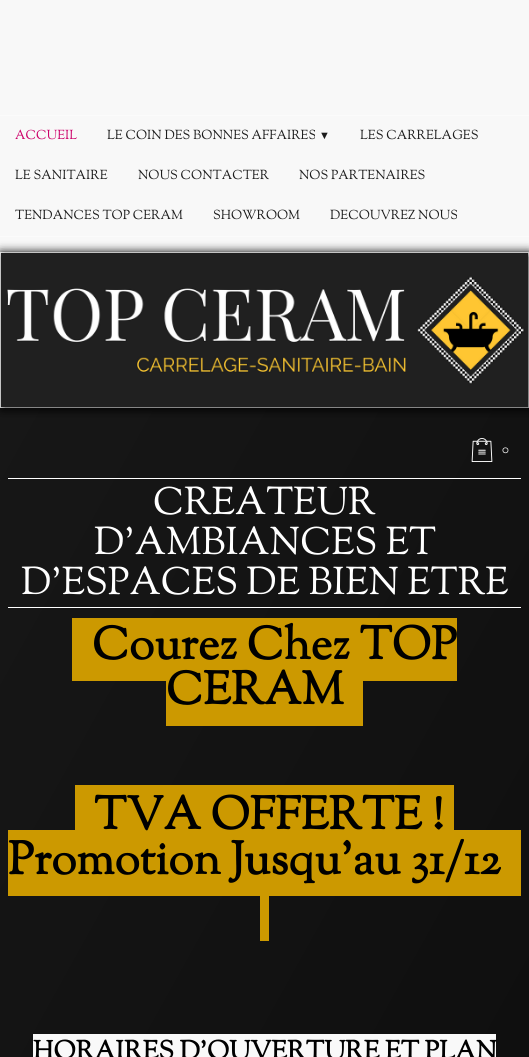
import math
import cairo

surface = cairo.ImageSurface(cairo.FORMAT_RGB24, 529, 1057)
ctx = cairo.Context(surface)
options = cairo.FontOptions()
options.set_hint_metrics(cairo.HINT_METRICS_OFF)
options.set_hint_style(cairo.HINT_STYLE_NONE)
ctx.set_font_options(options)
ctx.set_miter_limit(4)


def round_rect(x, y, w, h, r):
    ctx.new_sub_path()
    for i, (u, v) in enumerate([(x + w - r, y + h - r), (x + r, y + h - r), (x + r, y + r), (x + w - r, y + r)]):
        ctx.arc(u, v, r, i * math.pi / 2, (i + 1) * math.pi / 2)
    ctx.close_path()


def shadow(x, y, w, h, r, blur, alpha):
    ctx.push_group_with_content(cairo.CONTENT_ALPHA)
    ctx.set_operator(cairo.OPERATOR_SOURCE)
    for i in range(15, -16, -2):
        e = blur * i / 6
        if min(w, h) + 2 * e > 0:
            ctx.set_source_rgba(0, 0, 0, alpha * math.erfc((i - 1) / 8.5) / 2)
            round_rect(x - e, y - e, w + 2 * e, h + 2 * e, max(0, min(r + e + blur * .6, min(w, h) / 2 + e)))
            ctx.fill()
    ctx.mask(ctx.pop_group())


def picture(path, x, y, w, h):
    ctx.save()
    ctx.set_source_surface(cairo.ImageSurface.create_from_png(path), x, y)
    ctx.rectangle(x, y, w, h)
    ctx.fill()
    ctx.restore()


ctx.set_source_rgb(0.969, 0.969, 0.969)
ctx.paint()
ctx.set_source_rgb(0.984, 0.984, 0.984)
ctx.rectangle(0, 115, 529, 1)
ctx.fill()
ctx.rectangle(0, 236, 529, 1)
ctx.fill()
ctx.select_font_face("Sorts Mill Goudy")
ctx.set_font_size(13)
ctx.set_source_rgb(0.8, 0, 0.412)
ctx.move_to(15, 139)
ctx.show_text("ACCUEIL")
ctx.set_source_rgb(0.11, 0.11, 0.11)
ctx.move_to(107, 139)
ctx.show_text("LE COIN DES BONNES AFFAIRES")
ctx.select_font_face("Liberation Serif")
ctx.set_font_size(11)
ctx.move_to(319, 139)
ctx.show_text("▼")
ctx.select_font_face("Sorts Mill Goudy")
ctx.set_font_size(13)
ctx.move_to(360, 139)
ctx.show_text("LES CARRELAGES")
ctx.move_to(15, 179)
ctx.show_text("LE SANITAIRE")
ctx.move_to(138, 179)
ctx.show_text("NOUS CONTACTER")
ctx.move_to(299, 179)
ctx.show_text("NOS PARTENAIRES")
ctx.move_to(15, 219)
ctx.show_text("TENDANCES TOP CERAM")
ctx.move_to(213, 219)
ctx.show_text("SHOWROOM")
ctx.move_to(330, 219)
ctx.show_text("DECOUVREZ NOUS")
gradient = cairo.LinearGradient(-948, 1057, 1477, 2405)
gradient.add_color_stop_rgba(0, 0.11, 0.11, 0.11, 1)
gradient.add_color_stop_rgba(1, 0, 0, 0, 1)
ctx.set_source(gradient)
ctx.rectangle(0, 408, 529, 649)
ctx.fill()
ctx.set_source_rgb(0, 0, 0)
shadow(0, 252, 529, 156, 0, 5, 0.75)
ctx.rectangle(0.5, 252.5, 528, 155)
ctx.set_source_rgb(1, 1, 1)
ctx.set_line_width(1)
ctx.stroke()
ctx.set_source_rgb(0, 0, 0)
shadow(3, 255, 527, 154, 0, 5, 0.75)
picture("img1.png", 1, 253, 527, 154)
picture("img2.png", 471, 438, 22, 24)
ctx.set_source_rgb(1, 1, 1)
ctx.move_to(502, 453)
ctx.show_text("0")
ctx.rectangle(8, 478, 513, 1)
ctx.fill()
ctx.rectangle(8, 607, 513, 1)
ctx.fill()
ctx.set_font_size(38.5)
ctx.move_to(153, 514)
ctx.show_text("CREATEUR")
ctx.move_to(94, 554)
ctx.show_text("D'AMBIANCES ET")
ctx.move_to(21, 594)
ctx.show_text("D'ESPACES DE BIEN ETRE")
ctx.set_source_rgb(0.8, 0.6, 0)
ctx.rectangle(72, 618, 385, 63)
ctx.fill()
ctx.select_font_face("Sorts Mill Goudy", cairo.FONT_SLANT_NORMAL, cairo.FONT_WEIGHT_BOLD)
ctx.set_font_size(46)
ctx.set_source_rgb(0, 0, 0)
ctx.move_to(92, 659)
ctx.show_text("Courez Chez TOP")
ctx.set_source_rgb(0.8, 0.6, 0)
ctx.rectangle(166, 681, 197, 45)
ctx.fill()
ctx.set_source_rgb(0, 0, 0)
ctx.move_to(166, 704)
ctx.show_text("CERAM")
ctx.set_source_rgb(0.8, 0.6, 0)
ctx.rectangle(75, 785, 379, 45)
ctx.fill()
ctx.rectangle(8, 830, 513, 66)
ctx.fill()
ctx.set_source_rgb(0, 0, 0)
ctx.move_to(94, 829)
ctx.show_text("TVA OFFERTE !")
ctx.move_to(8, 874)
ctx.show_text("Promotion Jusqu'au 31/12")
ctx.set_source_rgb(0.8, 0.6, 0)
ctx.rectangle(260, 896, 9, 45)
ctx.fill()
ctx.set_source_rgb(0.973, 0.973, 0.973)
ctx.rectangle(33, 1034, 463, 23)
ctx.fill()
ctx.set_font_size(26)
ctx.set_source_rgb(0, 0, 0)
ctx.move_to(33, 1059)
ctx.show_text("HORAIRES D'OUVERTURE ET PLAN")
surface.write_to_png("page.png")
